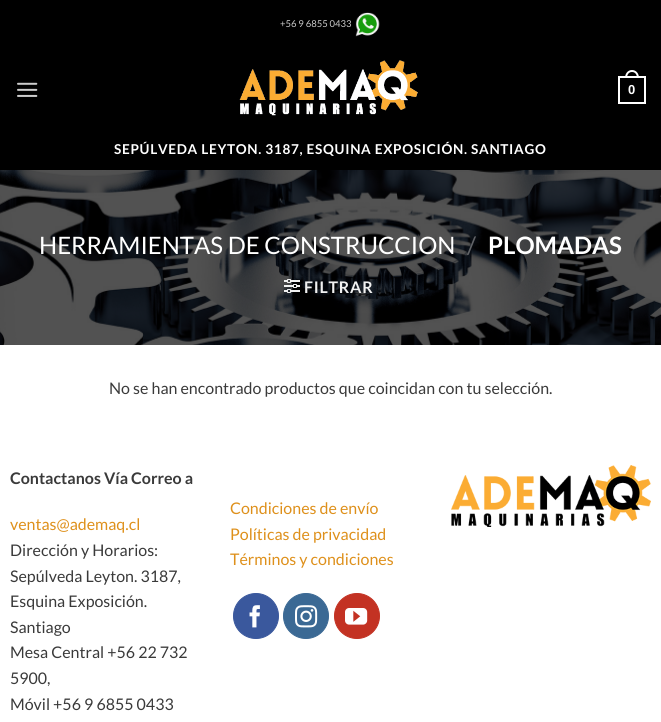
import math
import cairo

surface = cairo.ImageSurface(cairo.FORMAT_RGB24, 661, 722)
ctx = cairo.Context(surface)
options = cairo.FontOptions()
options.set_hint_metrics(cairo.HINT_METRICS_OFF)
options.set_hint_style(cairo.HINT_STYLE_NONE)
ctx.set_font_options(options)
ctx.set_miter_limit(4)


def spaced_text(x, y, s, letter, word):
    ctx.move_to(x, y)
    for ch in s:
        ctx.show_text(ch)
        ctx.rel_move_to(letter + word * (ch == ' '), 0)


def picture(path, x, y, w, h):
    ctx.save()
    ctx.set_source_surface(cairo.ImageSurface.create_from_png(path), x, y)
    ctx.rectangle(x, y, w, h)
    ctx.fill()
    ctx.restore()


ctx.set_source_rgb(1, 1, 1)
ctx.paint()
ctx.set_source_rgb(0, 0, 0)
ctx.rectangle(0, 0, 661, 170)
ctx.fill()
ctx.select_font_face("Lato")
ctx.set_font_size(9.5)
ctx.set_source_rgb(0.8, 0.8, 0.8)
ctx.move_to(280, 27)
ctx.show_text("+56 9 6855 0433")
picture("img1.png", 355, 12, 25, 25)
picture("img2.png", 17, 82, 21, 15)
picture("img3.png", 239, 60, 179, 56)
ctx.rectangle(619, 77, 26, 26)
ctx.set_source_rgb(1, 1, 1)
ctx.stroke()
ctx.set_fill_rule(cairo.FILL_RULE_EVEN_ODD)
ctx.new_path()
ctx.move_to(632, 70)
ctx.curve_to(636.5, 70, 639, 74, 639, 78)
ctx.line_to(625, 78)
ctx.curve_to(625, 74, 627.5, 70, 632, 70)
ctx.close_path()
ctx.move_to(632, 72)
ctx.curve_to(635.5, 72, 637, 75, 637, 78)
ctx.line_to(627, 78)
ctx.curve_to(627, 75, 628.5, 72, 632, 72)
ctx.close_path()
ctx.fill()
ctx.select_font_face("Liberation Sans", cairo.FONT_SLANT_NORMAL, cairo.FONT_WEIGHT_BOLD)
ctx.set_font_size(13)
ctx.move_to(628, 94)
ctx.show_text("0")
ctx.select_font_face("Lato", cairo.FONT_SLANT_NORMAL, cairo.FONT_WEIGHT_BOLD)
ctx.set_font_size(13.6)
spaced_text(114, 154, "SEPÚLVEDA LEYTON. 3187, ESQUINA EXPOSICIÓN. SANTIAGO", 0.68, 0)
picture("img4.png", 0, 170, 661, 175)
ctx.select_font_face("Lato")
ctx.set_font_size(24)
ctx.move_to(39, 254)
ctx.show_text("HERRAMIENTAS DE CONSTRUCCION")
ctx.set_source_rgb(0.38, 0.388, 0.404)
ctx.move_to(467, 254)
ctx.show_text("/")
ctx.select_font_face("Lato", cairo.FONT_SLANT_NORMAL, cairo.FONT_WEIGHT_BOLD)
ctx.set_source_rgb(1, 1, 1)
ctx.move_to(488, 254)
ctx.show_text("PLOMADAS")
picture("img5.png", 284, 279, 16, 14)
ctx.set_font_size(16)
ctx.set_source_rgb(0.945, 0.945, 0.945)
spaced_text(304, 293, "FILTRAR", 0.75, 0)
ctx.select_font_face("Lato")
ctx.set_source_rgb(0.227, 0.227, 0.227)
ctx.move_to(109, 394)
ctx.show_text("No se han encontrado productos que coincidan con tu selección.")
ctx.select_font_face("Lato", cairo.FONT_SLANT_NORMAL, cairo.FONT_WEIGHT_BOLD)
ctx.move_to(10, 484)
ctx.show_text("Contactanos Vía Correo a")
ctx.select_font_face("Lato")
ctx.set_source_rgb(0.871, 0.565, 0.106)
ctx.move_to(10, 530)
ctx.show_text("ventas@ademaq.cl")
ctx.set_source_rgb(0.227, 0.227, 0.227)
ctx.move_to(10, 556)
ctx.show_text("Dirección y Horarios:")
ctx.move_to(10, 582)
ctx.show_text("Sepúlveda Leyton. 3187,")
ctx.move_to(10, 607)
ctx.show_text("Esquina Exposición.")
ctx.move_to(10, 633)
ctx.show_text("Santiago")
ctx.move_to(10, 658)
ctx.show_text("Mesa Central +56 22 732")
ctx.move_to(10, 684)
ctx.show_text("5900,")
ctx.move_to(10, 710)
ctx.show_text("Móvil +56 9 6855 0433")
ctx.set_source_rgb(0.871, 0.565, 0.106)
ctx.move_to(230, 514)
ctx.show_text("Condiciones de envío")
ctx.move_to(230, 540)
ctx.show_text("Políticas de privacidad")
ctx.move_to(230, 565)
ctx.show_text("Términos y condiciones")
ctx.set_source_rgb(0.227, 0.345, 0.616)
ctx.new_path()
ctx.arc(256, 616, 22.5, 0, 2 * math.pi)
ctx.fill_preserve()
ctx.set_line_width(1)
ctx.stroke()
picture("img6.png", 249, 605, 11, 23)
ctx.set_source_rgb(0.231, 0.412, 0.58)
ctx.arc(306, 616, 22.5, 0, 2 * math.pi)
ctx.fill_preserve()
ctx.stroke()
picture("img7.png", 295, 605, 23, 23)
ctx.set_source_rgb(0.765, 0.196, 0.137)
ctx.arc(357, 616, 22.5, 0, 2 * math.pi)
ctx.fill_preserve()
ctx.stroke()
picture("img8.png", 345, 608, 23, 17)
picture("img9.png", 451, 465, 200, 62)
surface.write_to_png("page.png")
